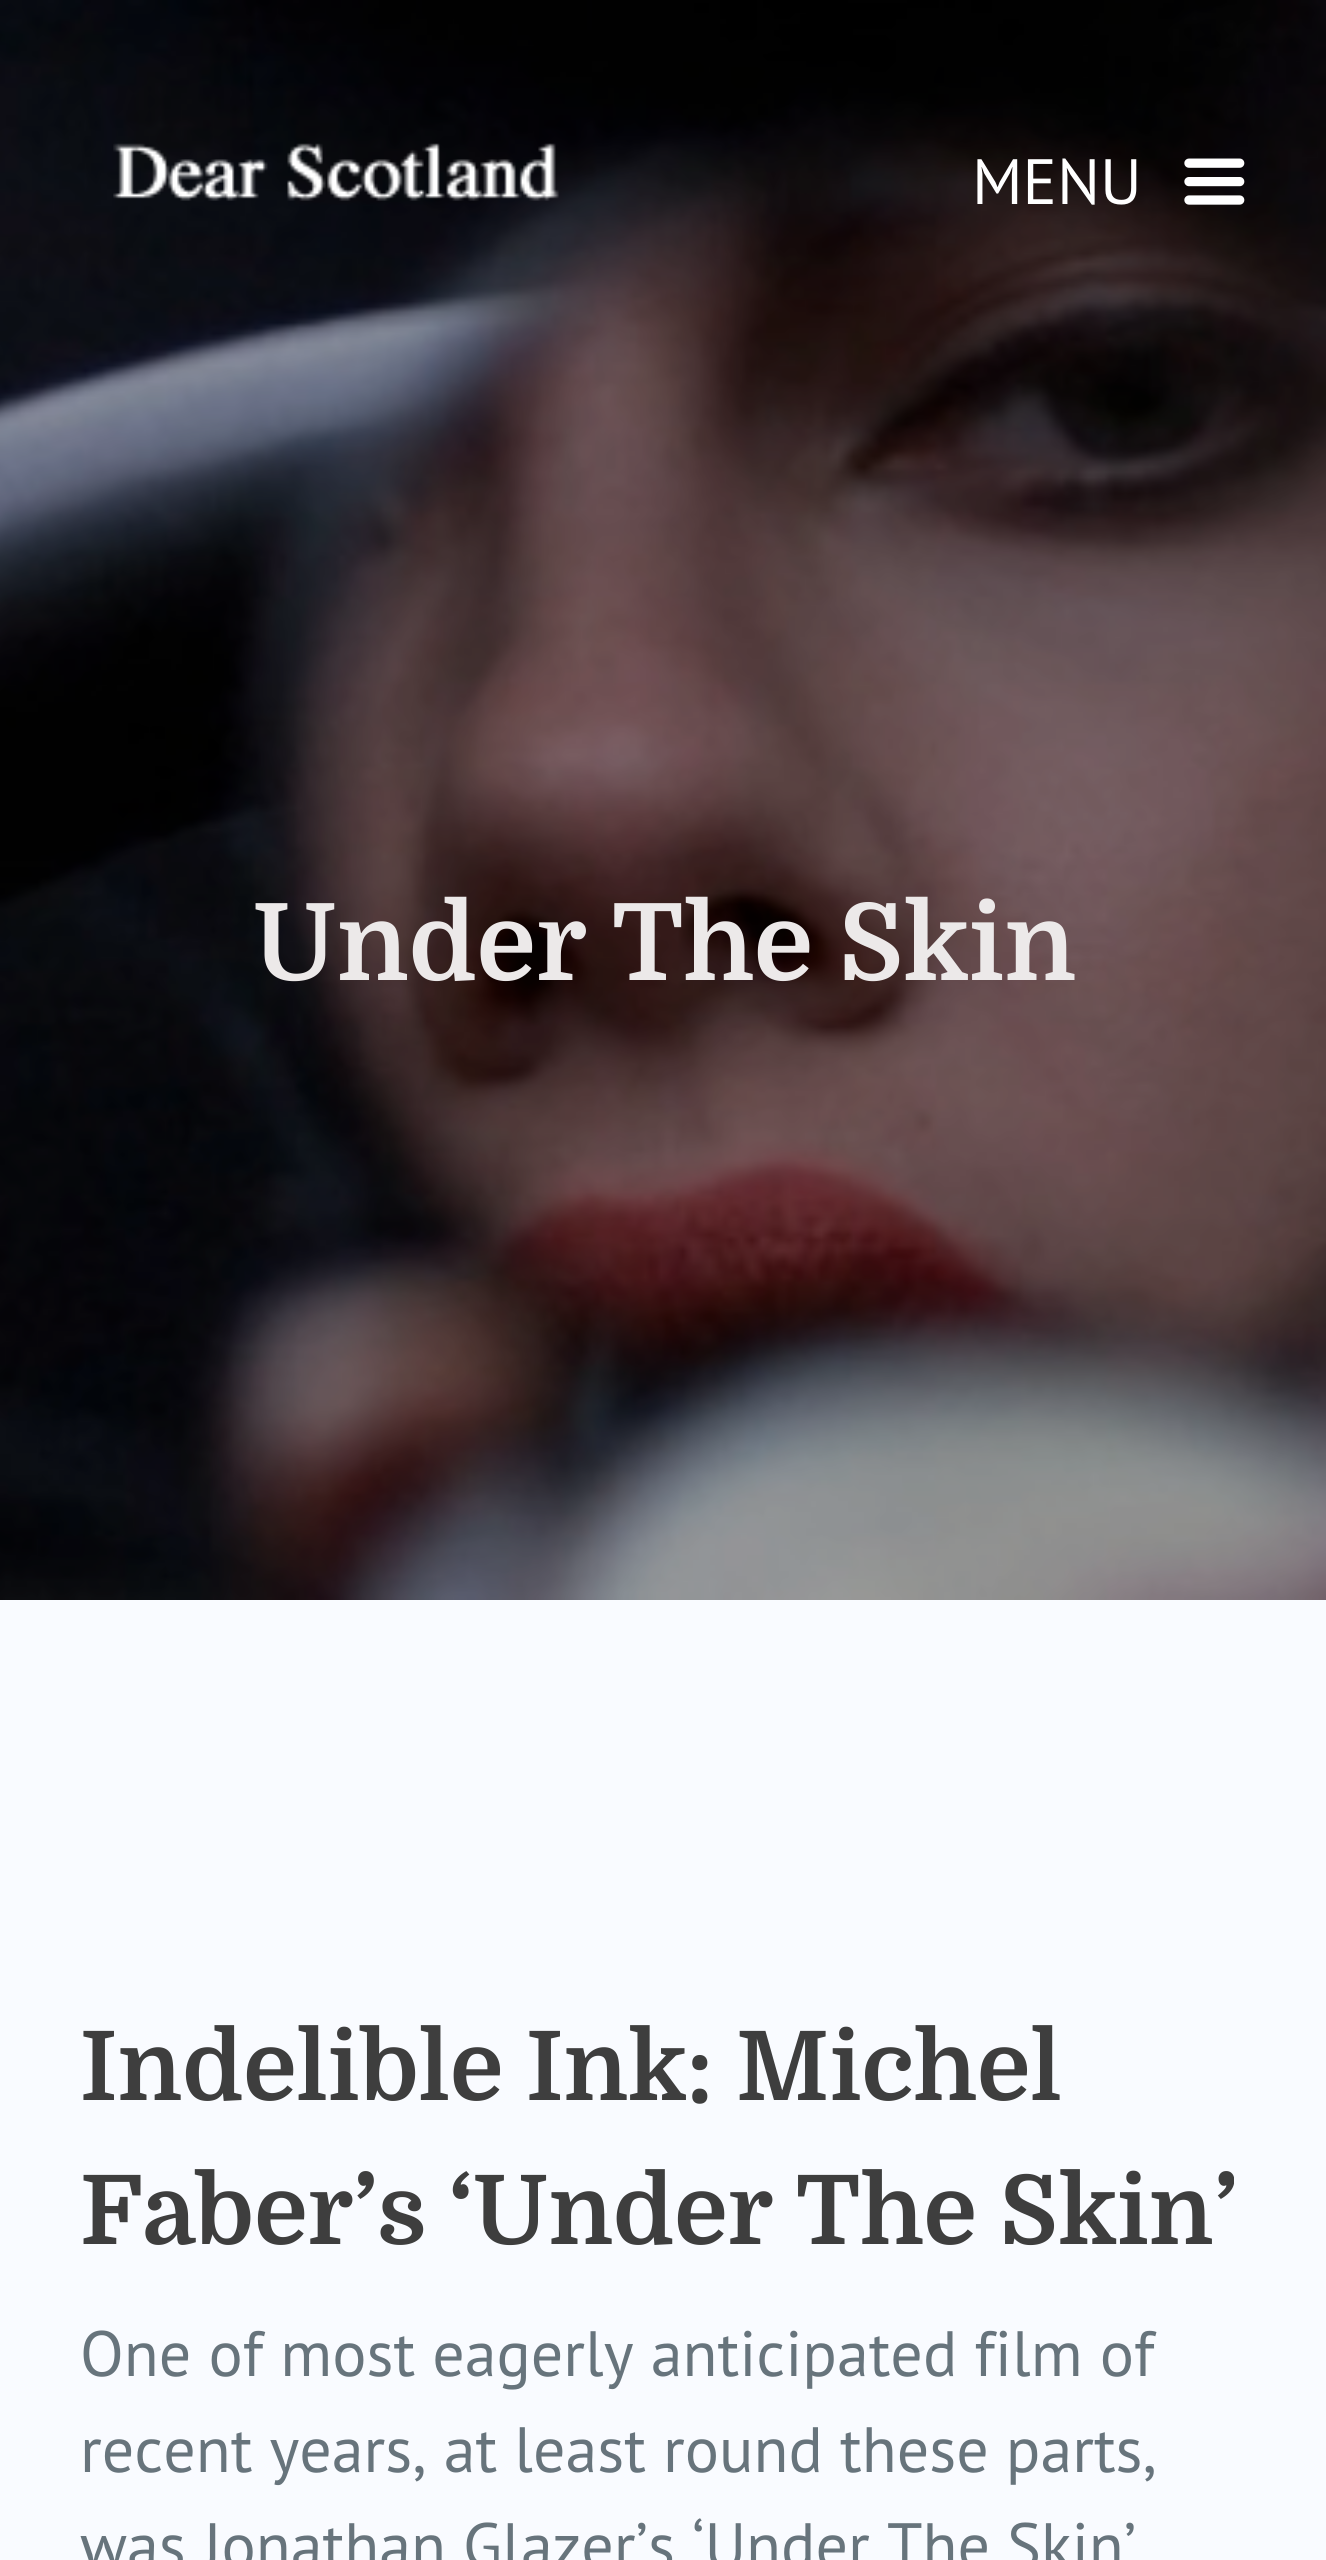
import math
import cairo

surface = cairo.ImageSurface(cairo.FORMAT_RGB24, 1326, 2560)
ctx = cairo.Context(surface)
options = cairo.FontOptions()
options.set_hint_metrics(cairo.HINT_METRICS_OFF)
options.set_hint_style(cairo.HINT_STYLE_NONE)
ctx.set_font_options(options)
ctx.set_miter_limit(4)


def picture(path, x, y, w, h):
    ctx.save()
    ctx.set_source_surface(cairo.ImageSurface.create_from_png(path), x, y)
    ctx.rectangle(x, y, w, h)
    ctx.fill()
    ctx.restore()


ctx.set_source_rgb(0.976, 0.984, 1)
ctx.paint()
picture("img3.png", 0, 0, 1326, 1600)
picture("img1.png", 113, 143, 446, 58)
ctx.select_font_face("PT Sans")
ctx.set_font_size(64)
ctx.set_source_rgb(1, 1, 1)
ctx.move_to(972, 204)
ctx.show_text("MENU")
picture("img2.png", 1184, 158, 61, 47)
ctx.select_font_face("Domine", cairo.FONT_SLANT_NORMAL, cairo.FONT_WEIGHT_BOLD)
ctx.set_font_size(106.75)
ctx.set_source_rgb(0.922, 0.914, 0.914)
ctx.move_to(253, 980)
ctx.show_text("Under The Skin")
ctx.set_font_size(96)
ctx.set_source_rgb(0.243, 0.243, 0.243)
ctx.move_to(80, 2100)
ctx.show_text("Indelible Ink: Michel")
ctx.move_to(80, 2244)
ctx.show_text("Faber’s ‘Under The Skin’")
ctx.select_font_face("PT Sans")
ctx.set_font_size(64)
ctx.set_source_rgb(0.404, 0.455, 0.486)
ctx.move_to(80, 2376)
ctx.show_text("One of most eagerly anticipated film of")
ctx.move_to(80, 2472)
ctx.show_text("recent years, at least round these parts,")
ctx.move_to(80, 2568)
ctx.show_text("was Jonathan Glazer’s ‘Under The Skin’")
surface.write_to_png("page.png")
